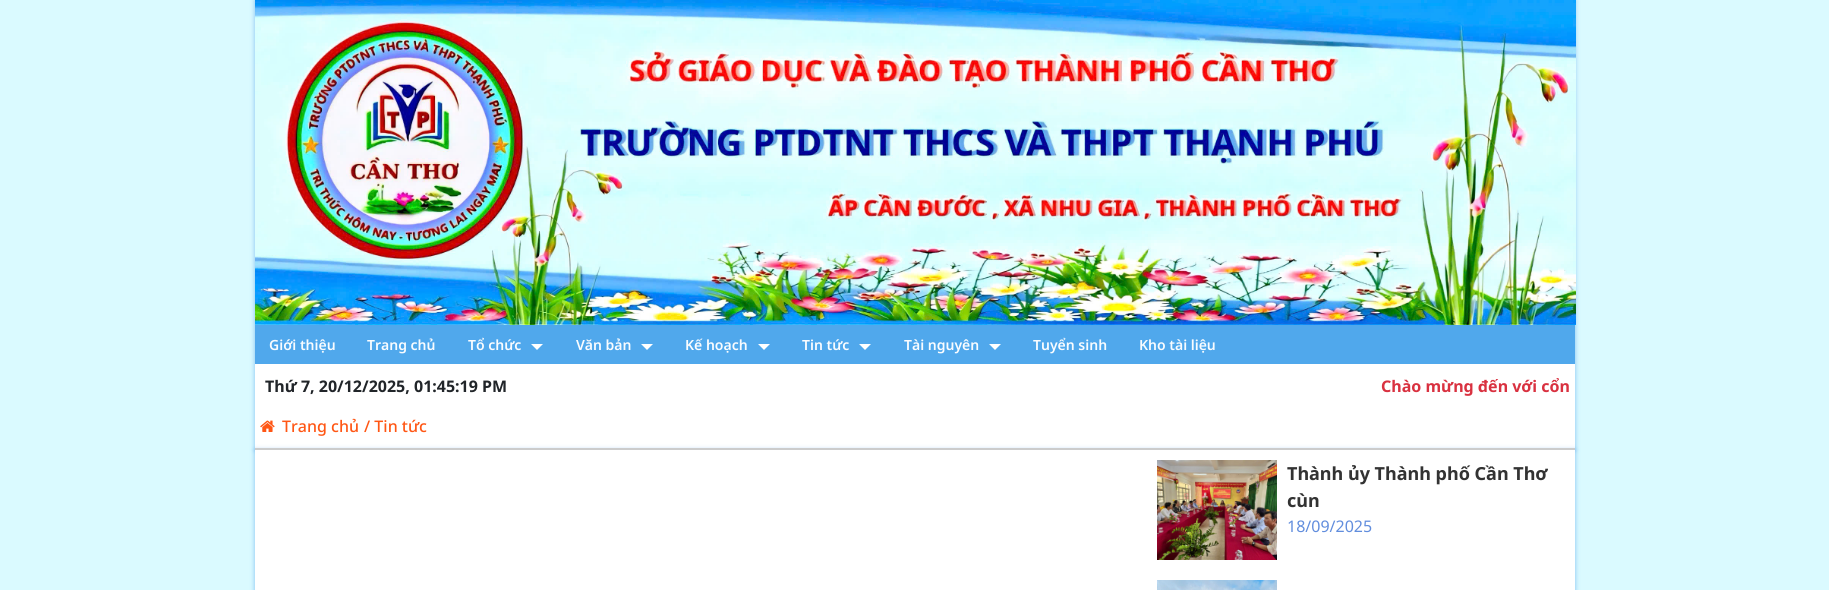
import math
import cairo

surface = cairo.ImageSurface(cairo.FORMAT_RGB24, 1829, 590)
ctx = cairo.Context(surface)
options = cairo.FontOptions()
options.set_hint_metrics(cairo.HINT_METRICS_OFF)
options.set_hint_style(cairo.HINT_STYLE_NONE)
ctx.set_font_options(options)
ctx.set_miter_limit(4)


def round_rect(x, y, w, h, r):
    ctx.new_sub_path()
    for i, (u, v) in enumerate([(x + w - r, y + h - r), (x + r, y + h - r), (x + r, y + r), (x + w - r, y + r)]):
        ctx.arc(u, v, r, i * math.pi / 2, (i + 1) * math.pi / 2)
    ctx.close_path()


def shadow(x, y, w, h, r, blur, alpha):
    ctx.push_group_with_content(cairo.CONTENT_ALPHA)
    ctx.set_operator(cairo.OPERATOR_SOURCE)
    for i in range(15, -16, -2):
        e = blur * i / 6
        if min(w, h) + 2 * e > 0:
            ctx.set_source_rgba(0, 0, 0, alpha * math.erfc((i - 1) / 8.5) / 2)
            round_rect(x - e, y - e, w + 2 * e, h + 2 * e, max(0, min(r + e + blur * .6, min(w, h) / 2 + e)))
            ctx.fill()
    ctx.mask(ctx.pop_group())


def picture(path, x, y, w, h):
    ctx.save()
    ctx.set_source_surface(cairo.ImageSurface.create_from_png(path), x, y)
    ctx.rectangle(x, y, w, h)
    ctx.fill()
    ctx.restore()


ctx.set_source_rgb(0.855, 0.98, 1)
ctx.paint()
ctx.set_source_rgb(0.161, 0.514, 0.89)
shadow(255, 0, 1320, 450, 0, 2.5, 0.5)
ctx.set_source_rgb(1, 1, 1)
ctx.rectangle(255, 364, 1320, 84)
ctx.fill()
picture("img1.png", 255, 0, 1321, 325)
ctx.set_source_rgb(0.314, 0.659, 0.925)
ctx.rectangle(255, 325, 1320, 39)
ctx.fill()
ctx.select_font_face("Noto Sans SemiBold")
ctx.set_font_size(14)
ctx.set_source_rgb(0.973, 0.988, 1)
ctx.move_to(269, 350)
ctx.show_text("Giới thiệu")
ctx.move_to(367, 350)
ctx.show_text("Trang chủ")
ctx.move_to(468, 350)
ctx.show_text("Tổ chức")
ctx.set_source_rgb(1, 1, 1)
ctx.new_path()
ctx.move_to(531, 344)
ctx.line_to(543, 344)
ctx.line_to(537, 350)
ctx.close_path()
ctx.fill()
ctx.set_source_rgb(0.973, 0.988, 1)
ctx.move_to(576, 350)
ctx.show_text("Văn bản")
ctx.set_source_rgb(1, 1, 1)
ctx.new_path()
ctx.move_to(641, 344)
ctx.line_to(653, 344)
ctx.line_to(647, 350)
ctx.close_path()
ctx.fill()
ctx.set_source_rgb(0.973, 0.988, 1)
ctx.move_to(685, 350)
ctx.show_text("Kế hoạch")
ctx.set_source_rgb(1, 1, 1)
ctx.new_path()
ctx.move_to(758, 344)
ctx.line_to(770, 344)
ctx.line_to(764, 350)
ctx.close_path()
ctx.fill()
ctx.set_source_rgb(0.973, 0.988, 1)
ctx.move_to(802, 350)
ctx.show_text("Tin tức")
ctx.set_source_rgb(1, 1, 1)
ctx.new_path()
ctx.move_to(859, 344)
ctx.line_to(871, 344)
ctx.line_to(865, 350)
ctx.close_path()
ctx.fill()
ctx.set_source_rgb(0.973, 0.988, 1)
ctx.move_to(904, 350)
ctx.show_text("Tài nguyên")
ctx.set_source_rgb(1, 1, 1)
ctx.new_path()
ctx.move_to(989, 344)
ctx.line_to(1001, 344)
ctx.line_to(995, 350)
ctx.close_path()
ctx.fill()
ctx.set_source_rgb(0.973, 0.988, 1)
ctx.move_to(1033, 350)
ctx.show_text("Tuyển sinh")
ctx.move_to(1139, 350)
ctx.show_text("Kho tài liệu")
ctx.select_font_face("Noto Sans", cairo.FONT_SLANT_NORMAL, cairo.FONT_WEIGHT_BOLD)
ctx.set_font_size(16)
ctx.set_source_rgb(0.129, 0.145, 0.161)
ctx.move_to(265, 392)
ctx.show_text("Thứ 7, 20/12/2025, 01:45:19 PM")
ctx.set_source_rgb(0.851, 0.192, 0.251)
ctx.move_to(1381, 392)
ctx.show_text("Chào mừng đến với cổn")
ctx.set_source_rgb(0.161, 0.514, 0.89)
shadow(255, 450, 1320, 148, 0, 2.5, 0.5)
ctx.set_source_rgb(0.8, 0.8, 0.8)
ctx.rectangle(255, 448, 1320, 2)
ctx.fill()
picture("img2.png", 260, 420, 15, 12)
ctx.select_font_face("Noto Sans Medium")
ctx.set_source_rgb(1, 0.337, 0.082)
ctx.move_to(282, 432)
ctx.show_text("Trang chủ")
ctx.move_to(364, 432)
ctx.show_text("/ Tin tức")
ctx.set_source_rgb(1, 1, 1)
ctx.rectangle(255, 450, 1320, 140)
ctx.fill()
picture("img3.png", 1157, 460, 120, 100)
ctx.select_font_face("Noto Sans", cairo.FONT_SLANT_NORMAL, cairo.FONT_WEIGHT_BOLD)
ctx.set_font_size(18)
ctx.set_source_rgb(0.2, 0.2, 0.2)
ctx.move_to(1287, 480)
ctx.show_text("Thành ủy Thành phố Cần Thơ")
ctx.move_to(1287, 507)
ctx.show_text("cùn")
ctx.select_font_face("Noto Sans")
ctx.set_font_size(16)
ctx.set_source_rgb(0.38, 0.553, 0.867)
ctx.move_to(1287, 532)
ctx.show_text("18/09/2025")
picture("img4.png", 1157, 580, 120, 10)
surface.write_to_png("page.png")
